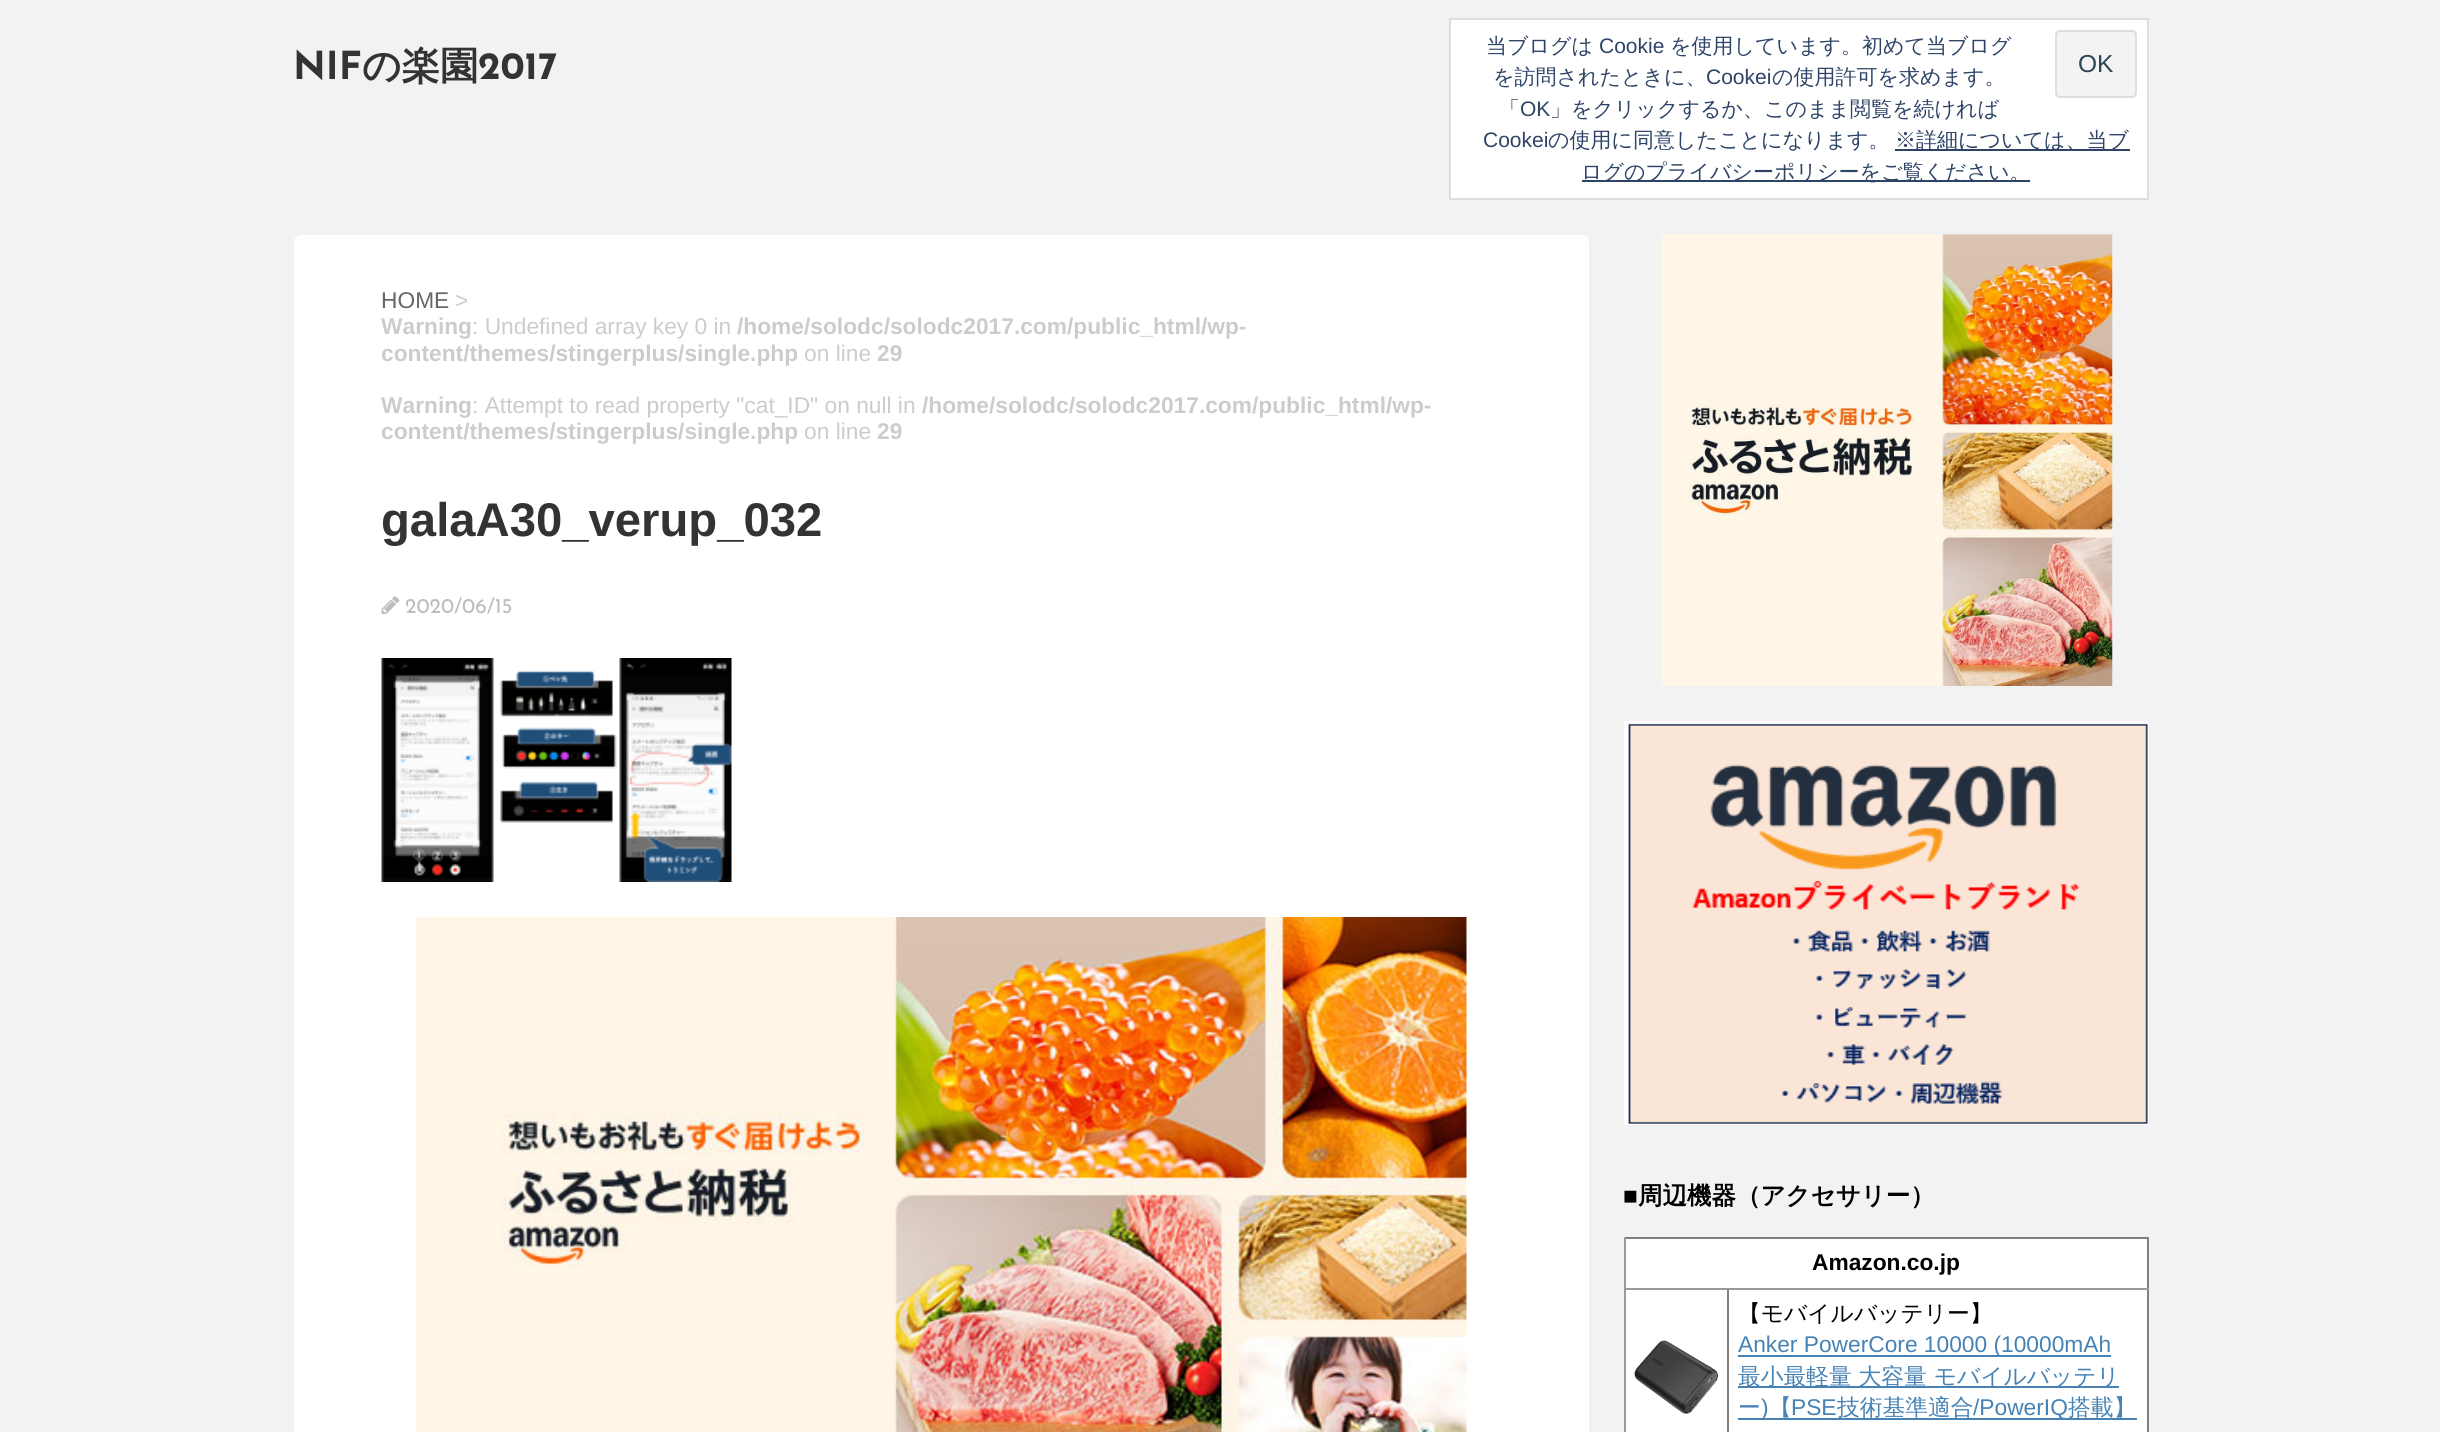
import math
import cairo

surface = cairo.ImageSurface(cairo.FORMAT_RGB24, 2440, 1432)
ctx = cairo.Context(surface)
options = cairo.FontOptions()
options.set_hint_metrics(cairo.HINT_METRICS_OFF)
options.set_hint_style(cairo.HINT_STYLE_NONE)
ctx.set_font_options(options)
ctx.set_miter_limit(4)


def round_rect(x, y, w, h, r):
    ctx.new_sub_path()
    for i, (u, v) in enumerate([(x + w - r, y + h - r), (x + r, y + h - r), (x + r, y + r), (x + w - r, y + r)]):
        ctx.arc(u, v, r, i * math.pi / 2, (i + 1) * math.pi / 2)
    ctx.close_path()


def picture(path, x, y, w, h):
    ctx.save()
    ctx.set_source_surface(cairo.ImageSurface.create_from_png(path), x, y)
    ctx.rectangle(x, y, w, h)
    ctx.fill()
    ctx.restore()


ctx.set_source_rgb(0.949, 0.949, 0.949)
ctx.paint()
ctx.select_font_face("Josefin Sans", cairo.FONT_SLANT_NORMAL, cairo.FONT_WEIGHT_BOLD)
ctx.set_font_size(38.5)
ctx.set_source_rgb(0.2, 0.2, 0.2)
ctx.move_to(293, 79)
ctx.show_text("NIF")
ctx.select_font_face("WenQuanYi Zen Hei", cairo.FONT_SLANT_NORMAL, cairo.FONT_WEIGHT_BOLD)
ctx.move_to(362, 79)
ctx.show_text("の楽園")
ctx.select_font_face("Josefin Sans", cairo.FONT_SLANT_NORMAL, cairo.FONT_WEIGHT_BOLD)
ctx.move_to(478, 79)
ctx.show_text("2017")
ctx.set_source_rgb(1, 1, 1)
ctx.rectangle(1450, 19, 698, 180)
ctx.fill_preserve()
ctx.set_source_rgb(0.871, 0.871, 0.871)
ctx.stroke()
ctx.select_font_face("WenQuanYi Zen Hei Medium")
ctx.set_font_size(21)
ctx.set_source_rgb(0.18, 0.267, 0.404)
ctx.move_to(1486, 53)
ctx.show_text("当ブログは")
ctx.select_font_face("Liberation Sans")
ctx.move_to(1599, 53)
ctx.show_text("Cookie")
ctx.select_font_face("WenQuanYi Zen Hei Medium")
ctx.move_to(1670, 53)
ctx.show_text("を使用しています。初めて当ブログ")
ctx.set_source_rgb(0.953, 0.953, 0.953)
round_rect(2056, 31, 80, 66, 4)
ctx.fill_preserve()
ctx.set_source_rgb(0.871, 0.871, 0.871)
ctx.stroke()
ctx.select_font_face("Liberation Sans")
ctx.set_font_size(24.5)
ctx.set_source_rgb(0.18, 0.267, 0.325)
ctx.move_to(2078, 72)
ctx.show_text("OK")
ctx.select_font_face("WenQuanYi Zen Hei Medium")
ctx.set_font_size(21)
ctx.set_source_rgb(0.18, 0.267, 0.404)
ctx.move_to(1493, 84)
ctx.show_text("を訪問されたときに、")
ctx.select_font_face("Liberation Sans")
ctx.move_to(1706, 84)
ctx.show_text("Cookei")
ctx.select_font_face("WenQuanYi Zen Hei Medium")
ctx.move_to(1772, 84)
ctx.show_text("の使用許可を求めます。")
ctx.move_to(1499, 116)
ctx.show_text("「")
ctx.select_font_face("Liberation Sans")
ctx.move_to(1520, 116)
ctx.show_text("OK")
ctx.select_font_face("WenQuanYi Zen Hei Medium")
ctx.move_to(1550, 116)
ctx.show_text("」をクリックするか、このまま閲覧を続ければ")
ctx.select_font_face("Liberation Sans")
ctx.move_to(1483, 147)
ctx.show_text("Cookei")
ctx.select_font_face("WenQuanYi Zen Hei Medium")
ctx.move_to(1548, 147)
ctx.show_text("の使用に同意したことになります。")
ctx.rectangle(1895, 149, 235, 2)
ctx.fill()
ctx.move_to(1895, 147)
ctx.show_text("※詳細については、当ブ")
ctx.rectangle(1582, 180, 448, 2)
ctx.fill()
ctx.move_to(1581, 179)
ctx.show_text("ログのプライバシーポリシーをご覧ください。")
ctx.set_source_rgb(1, 1, 1)
round_rect(294, 235, 1295, 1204, 7)
ctx.fill()
ctx.select_font_face("Liberation Sans")
ctx.set_font_size(22.75)
ctx.set_source_rgb(0.4, 0.4, 0.4)
ctx.move_to(381, 308)
ctx.show_text("HOME")
ctx.set_source_rgb(0.8, 0.8, 0.8)
ctx.move_to(455, 308)
ctx.show_text(">")
ctx.select_font_face("Liberation Sans", cairo.FONT_SLANT_NORMAL, cairo.FONT_WEIGHT_BOLD)
ctx.move_to(381, 334)
ctx.show_text("Warning")
ctx.select_font_face("Liberation Sans")
ctx.move_to(472, 334)
ctx.show_text(": Undefined array key 0 in")
ctx.select_font_face("Liberation Sans", cairo.FONT_SLANT_NORMAL, cairo.FONT_WEIGHT_BOLD)
ctx.move_to(737, 334)
ctx.show_text("/home/solodc/solodc2017.com/public_html/wp-")
ctx.move_to(381, 361)
ctx.show_text("content/themes/stingerplus/single.php")
ctx.select_font_face("Liberation Sans")
ctx.move_to(804, 361)
ctx.show_text("on line")
ctx.select_font_face("Liberation Sans", cairo.FONT_SLANT_NORMAL, cairo.FONT_WEIGHT_BOLD)
ctx.move_to(877, 361)
ctx.show_text("29")
ctx.move_to(381, 413)
ctx.show_text("Warning")
ctx.select_font_face("Liberation Sans")
ctx.move_to(472, 413)
ctx.show_text(": Attempt to read property \"cat_ID\" on null in")
ctx.select_font_face("Liberation Sans", cairo.FONT_SLANT_NORMAL, cairo.FONT_WEIGHT_BOLD)
ctx.move_to(922, 413)
ctx.show_text("/home/solodc/solodc2017.com/public_html/wp-")
ctx.move_to(381, 439)
ctx.show_text("content/themes/stingerplus/single.php")
ctx.select_font_face("Liberation Sans")
ctx.move_to(804, 439)
ctx.show_text("on line")
ctx.select_font_face("Liberation Sans", cairo.FONT_SLANT_NORMAL, cairo.FONT_WEIGHT_BOLD)
ctx.move_to(877, 439)
ctx.show_text("29")
ctx.set_font_size(47.25)
ctx.set_source_rgb(0.2, 0.2, 0.2)
ctx.move_to(381, 536)
ctx.show_text("galaA30_verup_032")
picture("img1.png", 381, 596, 19, 18)
ctx.select_font_face("Josefin Sans")
ctx.set_font_size(21)
ctx.set_source_rgb(0.741, 0.741, 0.741)
ctx.move_to(405, 613)
ctx.show_text("2020/06/15")
picture("img2.png", 381, 658, 351, 224)
picture("img3.png", 416, 917, 1051, 515)
picture("img4.png", 1661, 234, 452, 452)
picture("img5.png", 1624, 721, 525, 404)
ctx.select_font_face("Liberation Sans", cairo.FONT_SLANT_NORMAL, cairo.FONT_WEIGHT_BOLD)
ctx.set_font_size(24.5)
ctx.set_source_rgb(0, 0, 0)
ctx.move_to(1623, 1204)
ctx.show_text("■")
ctx.select_font_face("WenQuanYi Zen Hei", cairo.FONT_SLANT_NORMAL, cairo.FONT_WEIGHT_BOLD)
ctx.move_to(1638, 1204)
ctx.show_text("周辺機器（アクセサリー）")
ctx.set_source_rgb(1, 1, 1)
ctx.rectangle(1626, 1239, 521, 193)
ctx.fill()
ctx.set_source_rgb(0.502, 0.502, 0.502)
ctx.rectangle(1624, 1237, 525, 2)
ctx.fill()
ctx.rectangle(2147, 1237, 2, 195)
ctx.fill()
ctx.rectangle(1727, 1288, 2, 144)
ctx.fill()
ctx.set_source_rgb(0.6, 0.6, 0.6)
ctx.rectangle(1624, 1288, 2, 144)
ctx.fill()
ctx.rectangle(1624, 1288, 525, 2)
ctx.fill()
ctx.rectangle(1624, 1237, 2, 53)
ctx.fill()
ctx.select_font_face("Liberation Sans", cairo.FONT_SLANT_NORMAL, cairo.FONT_WEIGHT_BOLD)
ctx.set_font_size(22.75)
ctx.set_source_rgb(0, 0, 0)
ctx.move_to(1812, 1270)
ctx.show_text("Amazon.co.jp")
picture("img6.png", 1634, 1340, 85, 74)
ctx.select_font_face("WenQuanYi Zen Hei Medium")
ctx.move_to(1738, 1321)
ctx.show_text("【モバイルバッテリー】")
ctx.set_source_rgb(0.275, 0.51, 0.706)
ctx.rectangle(1738, 1355, 373, 2)
ctx.fill()
ctx.select_font_face("Liberation Sans")
ctx.move_to(1738, 1352)
ctx.show_text("Anker PowerCore 10000 (10000mAh")
ctx.rectangle(1738, 1386, 381, 2)
ctx.fill()
ctx.select_font_face("WenQuanYi Zen Hei Medium")
ctx.move_to(1738, 1384)
ctx.show_text("最小最軽量 大容量 モバイルバッテリ")
ctx.move_to(1738, 1415)
ctx.show_text("ー")
ctx.rectangle(1738, 1418, 399, 2)
ctx.fill()
ctx.select_font_face("Liberation Sans")
ctx.move_to(1761, 1415)
ctx.show_text(")")
ctx.select_font_face("WenQuanYi Zen Hei Medium")
ctx.move_to(1769, 1415)
ctx.show_text("【")
ctx.select_font_face("Liberation Sans")
ctx.move_to(1791, 1415)
ctx.show_text("PSE")
ctx.select_font_face("WenQuanYi Zen Hei Medium")
ctx.move_to(1837, 1415)
ctx.show_text("技術基準適合")
ctx.select_font_face("Liberation Sans")
ctx.move_to(1973, 1415)
ctx.show_text("/PowerIQ")
ctx.select_font_face("WenQuanYi Zen Hei Medium")
ctx.move_to(2068, 1415)
ctx.show_text("搭載】")
surface.write_to_png("page.png")
